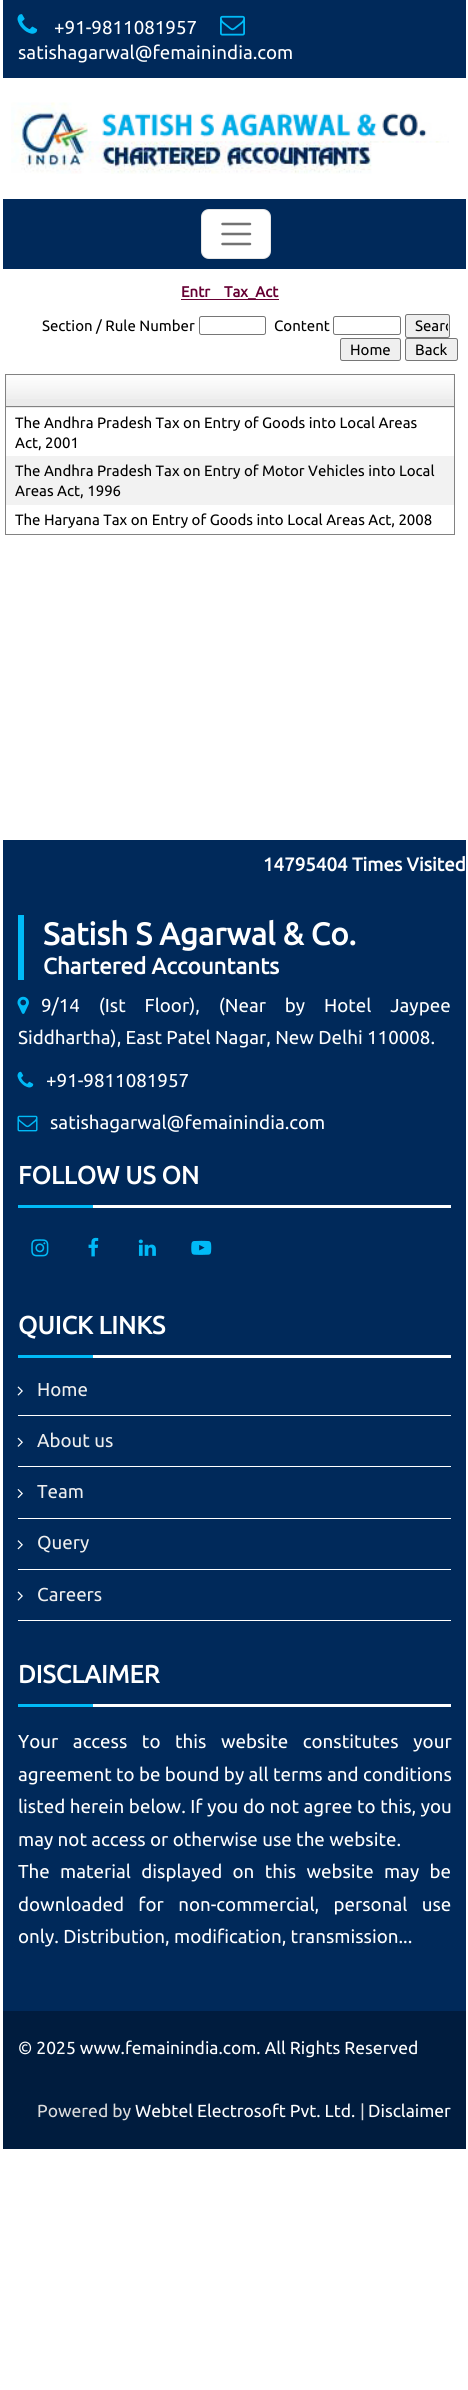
import math
import cairo

surface = cairo.ImageSurface(cairo.FORMAT_RGB24, 468, 2390)
ctx = cairo.Context(surface)
options = cairo.FontOptions()
options.set_hint_metrics(cairo.HINT_METRICS_OFF)
options.set_hint_style(cairo.HINT_STYLE_NONE)
ctx.set_font_options(options)
ctx.set_miter_limit(4)


def spaced_text(x, y, s, letter, word):
    ctx.move_to(x, y)
    for ch in s:
        ctx.show_text(ch)
        ctx.rel_move_to(letter + word * (ch == ' '), 0)


def round_rect(x, y, w, h, r):
    ctx.new_sub_path()
    for i, (u, v) in enumerate([(x + w - r, y + h - r), (x + r, y + h - r), (x + r, y + r), (x + w - r, y + r)]):
        ctx.arc(u, v, r, i * math.pi / 2, (i + 1) * math.pi / 2)
    ctx.close_path()


def picture(path, x, y, w, h):
    ctx.save()
    ctx.set_source_surface(cairo.ImageSurface.create_from_png(path), x, y)
    ctx.rectangle(x, y, w, h)
    ctx.fill()
    ctx.restore()


ctx.set_source_rgb(1, 1, 1)
ctx.paint()
ctx.set_source_rgb(0, 0.161, 0.353)
ctx.rectangle(3, 0, 463, 78)
ctx.fill()
picture("img1.png", 17, 14, 21, 20)
ctx.select_font_face("Ubuntu")
ctx.set_font_size(18.75)
ctx.set_source_rgb(1, 1, 1)
ctx.move_to(54, 34)
ctx.show_text("+91-9811081957")
picture("img2.png", 220, 15, 25, 21)
ctx.move_to(18, 59)
ctx.show_text("satishagarwal@femainindia.com")
picture("img3.png", 11, 102, 438, 72)
ctx.set_source_rgb(0, 0.161, 0.353)
ctx.rectangle(3, 199, 463, 70)
ctx.fill()
ctx.set_source_rgb(1, 1, 1)
round_rect(201, 209, 70, 50, 8)
ctx.fill()
round_rect(201.5, 209.5, 69, 49, 7.5)
ctx.set_source_rgba(0, 0, 0, 0.1)
ctx.set_line_width(1)
ctx.stroke()
ctx.new_path()
ctx.move_to(222.5, 224)
ctx.line_to(250, 224)
ctx.move_to(222.5, 234)
ctx.line_to(250, 234)
ctx.move_to(222.5, 244)
ctx.line_to(250, 244)
ctx.set_source_rgb(0.451, 0.451, 0.451)
ctx.set_line_width(2.5)
ctx.set_line_cap(cairo.LINE_CAP_ROUND)
ctx.stroke()
ctx.select_font_face("Ubuntu", cairo.FONT_SLANT_NORMAL, cairo.FONT_WEIGHT_BOLD)
ctx.set_font_size(15)
ctx.set_source_rgb(0.4, 0, 0.2)
ctx.move_to(181, 297)
ctx.show_text("Entr")
ctx.rectangle(181, 299, 98, 1)
ctx.fill()
ctx.move_to(224, 297)
ctx.show_text("Tax_Act")
ctx.select_font_face("Ubuntu")
ctx.set_source_rgb(0, 0, 0)
ctx.move_to(42, 331)
ctx.show_text("Section / Rule Number")
round_rect(199.5, 316.5, 66, 18, 2)
ctx.set_source_rgb(0.463, 0.463, 0.463)
ctx.set_line_width(1)
ctx.set_line_cap(cairo.LINE_CAP_BUTT)
ctx.stroke()
ctx.set_source_rgb(0, 0, 0)
ctx.move_to(274, 331)
ctx.show_text("Content")
round_rect(333.5, 316.5, 67, 18, 2)
ctx.set_source_rgb(0.463, 0.463, 0.463)
ctx.stroke()
ctx.set_source_rgb(0.937, 0.937, 0.937)
round_rect(405.5, 314.5, 44, 23, 2)
ctx.fill_preserve()
ctx.set_source_rgb(0.463, 0.463, 0.463)
ctx.stroke()
ctx.save()
ctx.rectangle(408, 316, 40, 19)
ctx.clip()
ctx.set_source_rgb(0, 0, 0)
ctx.move_to(415, 331)
ctx.show_text("Searc")
ctx.restore()
ctx.set_source_rgb(0.937, 0.937, 0.937)
round_rect(340.5, 338.5, 60, 22, 2)
ctx.fill_preserve()
ctx.set_source_rgb(0.463, 0.463, 0.463)
ctx.stroke()
ctx.set_source_rgb(0, 0, 0)
ctx.move_to(350, 355)
ctx.show_text("Home")
ctx.set_source_rgb(0.937, 0.937, 0.937)
round_rect(405.5, 338.5, 52, 22, 2)
ctx.fill_preserve()
ctx.set_source_rgb(0.463, 0.463, 0.463)
ctx.stroke()
ctx.set_source_rgb(0, 0, 0)
ctx.move_to(415, 355)
ctx.show_text("Back")
ctx.rectangle(5.5, 374.5, 449, 160)
ctx.set_source_rgb(0.51, 0.51, 0.51)
ctx.stroke()
ctx.set_source_rgb(0.918, 0.918, 0.918)
ctx.rectangle(6, 375, 448, 33)
ctx.fill()
picture("img4.png", 6, 375, 448, 24)
ctx.set_source_rgb(0.51, 0.51, 0.51)
ctx.rectangle(6, 406, 448, 1)
ctx.fill()
ctx.set_source_rgb(0, 0, 0)
ctx.move_to(15, 428)
ctx.show_text("The Andhra Pradesh Tax on Entry of Goods into Local Areas")
ctx.move_to(15, 448)
ctx.show_text("Act, 2001")
ctx.set_source_rgb(0.949, 0.949, 0.949)
ctx.rectangle(6, 456, 448, 49)
ctx.fill()
ctx.set_source_rgb(0, 0, 0)
ctx.move_to(15, 476)
ctx.show_text("The Andhra Pradesh Tax on Entry of Motor Vehicles into Local")
ctx.move_to(15, 496)
ctx.show_text("Areas Act, 1996")
ctx.move_to(15, 525)
ctx.show_text("The Haryana Tax on Entry of Goods into Local Areas Act, 2008")
ctx.set_source_rgb(0, 0.161, 0.353)
ctx.rectangle(3, 840, 463, 1171)
ctx.fill()
ctx.select_font_face("Ubuntu", cairo.FONT_SLANT_NORMAL, cairo.FONT_WEIGHT_BOLD)
ctx.set_font_size(18.75)
ctx.set_source_rgb(1, 1, 1)
ctx.move_to(263, 871)
ctx.show_text("14795404 Times Visited")
ctx.set_source_rgb(0, 0.11, 0.243)
ctx.rectangle(3, 2011, 463, 138)
ctx.fill()
ctx.set_source_rgb(0, 0.729, 0.969)
ctx.rectangle(18, 915, 6, 65)
ctx.fill()
ctx.set_font_size(31.25)
ctx.set_source_rgb(1, 1, 1)
ctx.move_to(43, 945)
ctx.show_text("Satish S Agarwal & Co.")
ctx.set_font_size(22.5)
ctx.move_to(43, 974)
ctx.show_text("Chartered Accountants")
picture("img5.png", 17, 996, 12, 18)
ctx.select_font_face("Ubuntu")
ctx.set_font_size(18.75)
spaced_text(41, 1012, "9/14 (Ist Floor), (Near by Hotel Jaypee", 0, 14.5)
ctx.move_to(18, 1044)
ctx.show_text("Siddhartha), East Patel Nagar, New Delhi 110008.")
picture("img6.png", 17, 1071, 17, 17)
ctx.move_to(46, 1087)
ctx.show_text("+91-9811081957")
picture("img7.png", 17, 1115, 21, 17)
ctx.move_to(50, 1129)
ctx.show_text("satishagarwal@femainindia.com")
ctx.select_font_face("Ubuntu", cairo.FONT_SLANT_NORMAL, cairo.FONT_WEIGHT_BOLD)
ctx.set_font_size(25)
ctx.move_to(18, 1184)
ctx.show_text("FOLLOW US ON")
ctx.set_source_rgb(0, 0.729, 0.969)
ctx.rectangle(18, 1205, 75, 3)
ctx.fill()
ctx.set_source_rgb(1, 1, 1)
ctx.rectangle(93, 1205, 358, 3)
ctx.fill()
picture("img8.png", 31, 1239, 18, 18)
picture("img9.png", 88, 1237, 11, 20)
picture("img10.png", 138, 1239, 18, 17)
picture("img11.png", 191, 1240, 21, 15)
ctx.move_to(18, 1334)
ctx.show_text("QUICK LINKS")
ctx.set_source_rgb(0, 0.729, 0.969)
ctx.rectangle(18, 1355, 75, 3)
ctx.fill()
ctx.set_source_rgb(1, 1, 1)
ctx.rectangle(93, 1355, 358, 3)
ctx.fill()
ctx.rectangle(18, 1415, 433, 1)
ctx.fill()
picture("img12.png", 17, 1386, 6, 10)
ctx.select_font_face("Ubuntu")
ctx.set_font_size(18.75)
ctx.set_source_rgb(0.933, 0.933, 0.933)
ctx.move_to(37, 1396)
ctx.show_text("Home")
ctx.set_source_rgb(1, 1, 1)
ctx.rectangle(18, 1466, 433, 1)
ctx.fill()
picture("img13.png", 17, 1437, 6, 10)
ctx.set_source_rgb(0.933, 0.933, 0.933)
ctx.move_to(37, 1447)
ctx.show_text("About us")
ctx.set_source_rgb(1, 1, 1)
ctx.rectangle(18, 1518, 433, 1)
ctx.fill()
picture("img14.png", 17, 1489, 6, 9)
ctx.set_source_rgb(0.933, 0.933, 0.933)
ctx.move_to(37, 1498)
ctx.show_text("Team")
ctx.set_source_rgb(1, 1, 1)
ctx.rectangle(18, 1569, 433, 1)
ctx.fill()
picture("img15.png", 17, 1540, 6, 10)
ctx.set_source_rgb(0.933, 0.933, 0.933)
ctx.move_to(37, 1549)
ctx.show_text("Query")
ctx.set_source_rgb(1, 1, 1)
ctx.rectangle(18, 1620, 433, 1)
ctx.fill()
picture("img12.png", 17, 1591, 6, 10)
ctx.set_source_rgb(0.933, 0.933, 0.933)
ctx.move_to(37, 1601)
ctx.show_text("Careers")
ctx.select_font_face("Ubuntu", cairo.FONT_SLANT_NORMAL, cairo.FONT_WEIGHT_BOLD)
ctx.set_font_size(25)
ctx.set_source_rgb(1, 1, 1)
ctx.move_to(18, 1683)
ctx.show_text("DISCLAIMER")
ctx.set_source_rgb(0, 0.729, 0.969)
ctx.rectangle(18, 1704, 75, 3)
ctx.fill()
ctx.set_source_rgb(1, 1, 1)
ctx.rectangle(93, 1704, 358, 3)
ctx.fill()
ctx.select_font_face("Ubuntu")
ctx.set_font_size(18.75)
spaced_text(18, 1748, "Your access to this website constitutes your", 0, 10.25)
ctx.move_to(18, 1781)
ctx.show_text("agreement to be bound by all terms and conditions")
spaced_text(18, 1813, "listed herein below. If you do not agree to this, you", 0, 0.25)
ctx.move_to(18, 1846)
ctx.show_text("may not access or otherwise use the website.")
spaced_text(18, 1878, "The material displayed on this website may be", 0, 6)
spaced_text(18, 1911, "downloaded for non-commercial, personal use", 0, 10)
ctx.move_to(18, 1943)
ctx.show_text("only. Distribution, modification, transmission...")
ctx.set_font_size(17.5)
ctx.move_to(18, 2054)
ctx.show_text("© 2025 www.femainindia.com. All Rights Reserved")
ctx.set_source_rgb(0.867, 0.867, 0.867)
ctx.move_to(37, 2117)
ctx.show_text("Powered by")
ctx.set_source_rgb(1, 1, 1)
ctx.move_to(135, 2117)
ctx.show_text("Webtel Electrosoft Pvt. Ltd.")
ctx.set_source_rgb(0.867, 0.867, 0.867)
ctx.move_to(360, 2117)
ctx.show_text("|")
ctx.set_source_rgb(1, 1, 1)
ctx.move_to(368, 2117)
ctx.show_text("Disclaimer")
surface.write_to_png("page.png")
